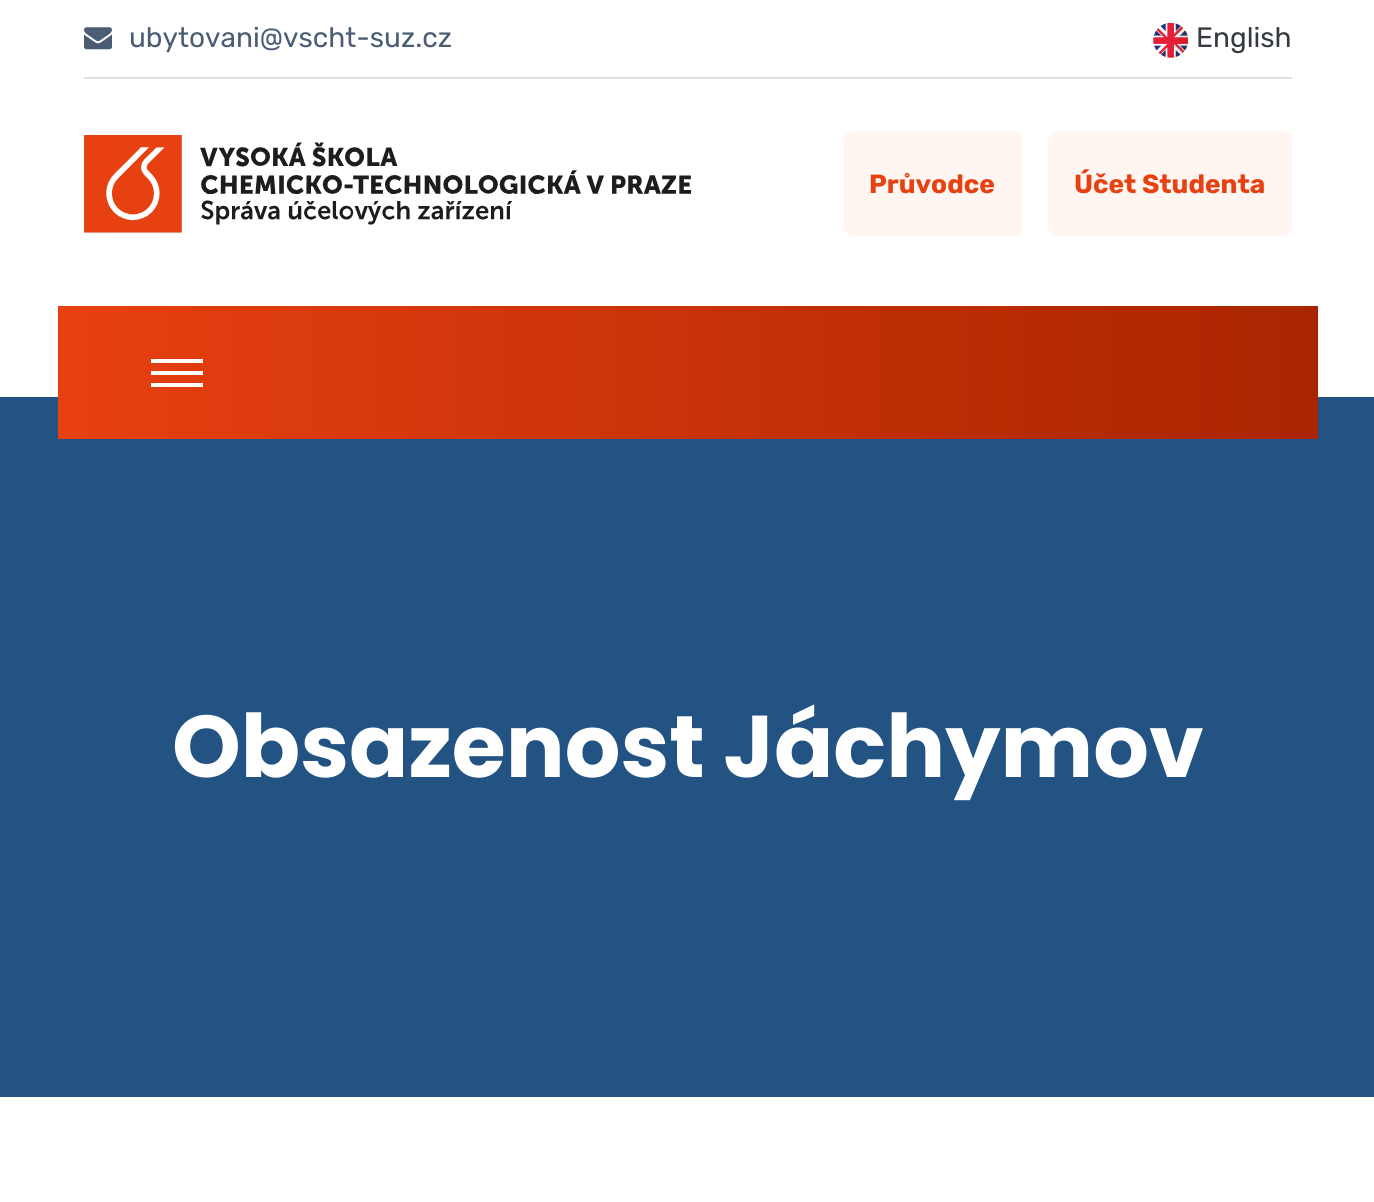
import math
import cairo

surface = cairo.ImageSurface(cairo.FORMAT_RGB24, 1374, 1202)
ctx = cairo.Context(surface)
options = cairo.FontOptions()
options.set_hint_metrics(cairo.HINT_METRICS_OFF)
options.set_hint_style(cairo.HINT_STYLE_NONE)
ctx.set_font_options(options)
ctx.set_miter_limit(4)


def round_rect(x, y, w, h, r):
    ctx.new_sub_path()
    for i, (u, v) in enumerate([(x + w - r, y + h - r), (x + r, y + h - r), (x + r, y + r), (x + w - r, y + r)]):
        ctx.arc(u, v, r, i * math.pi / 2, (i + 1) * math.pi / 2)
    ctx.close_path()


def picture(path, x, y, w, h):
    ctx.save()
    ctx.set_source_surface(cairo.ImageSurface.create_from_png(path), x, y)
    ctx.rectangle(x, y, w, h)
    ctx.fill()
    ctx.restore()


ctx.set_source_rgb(1, 1, 1)
ctx.paint()
ctx.set_source_rgb(0.859, 0.875, 0.89)
ctx.rectangle(84, 77, 1208, 2)
ctx.fill()
picture("img1.png", 84, 27, 28, 23)
ctx.select_font_face("Rubik")
ctx.set_font_size(28)
ctx.set_source_rgb(0.294, 0.365, 0.451)
ctx.move_to(129, 47)
ctx.show_text("ubytovani@vscht-suz.cz")
picture("img2.png", 1153, 23, 35, 35)
ctx.set_source_rgb(0.204, 0.227, 0.251)
ctx.move_to(1196, 47)
ctx.show_text("English")
picture("img3.png", 84, 135, 607, 98)
ctx.set_source_rgb(1, 0.961, 0.949)
round_rect(844, 131, 178, 105, 9)
ctx.fill()
ctx.select_font_face("Rubik", cairo.FONT_SLANT_NORMAL, cairo.FONT_WEIGHT_BOLD)
ctx.set_font_size(26.25)
ctx.set_source_rgb(0.906, 0.251, 0.067)
ctx.move_to(869, 193)
ctx.show_text("Průvodce")
ctx.set_source_rgb(1, 0.961, 0.949)
round_rect(1048, 131, 244, 105, 9)
ctx.fill()
ctx.set_source_rgb(0.906, 0.251, 0.067)
ctx.move_to(1074, 193)
ctx.show_text("Účet Studenta")
ctx.set_source_rgb(0.133, 0.325, 0.51)
ctx.rectangle(0, 397, 1374, 700)
ctx.fill()
gradient = cairo.LinearGradient(58, 373, 1318, 373)
gradient.add_color_stop_rgba(0, 0.906, 0.251, 0.067, 1)
gradient.add_color_stop_rgba(1, 0.663, 0.145, 0, 1)
ctx.set_source(gradient)
ctx.rectangle(58, 306, 1260, 133)
ctx.fill()
ctx.set_source_rgb(1, 1, 1)
ctx.rectangle(151, 359, 52, 4)
ctx.fill()
ctx.rectangle(151, 371, 52, 4)
ctx.fill()
ctx.rectangle(151, 383, 52, 4)
ctx.fill()
ctx.select_font_face("Poppins", cairo.FONT_SLANT_NORMAL, cairo.FONT_WEIGHT_BOLD)
ctx.set_font_size(87.5)
ctx.move_to(172, 777)
ctx.show_text("Obsazenost Jáchymov")
surface.write_to_png("page.png")
